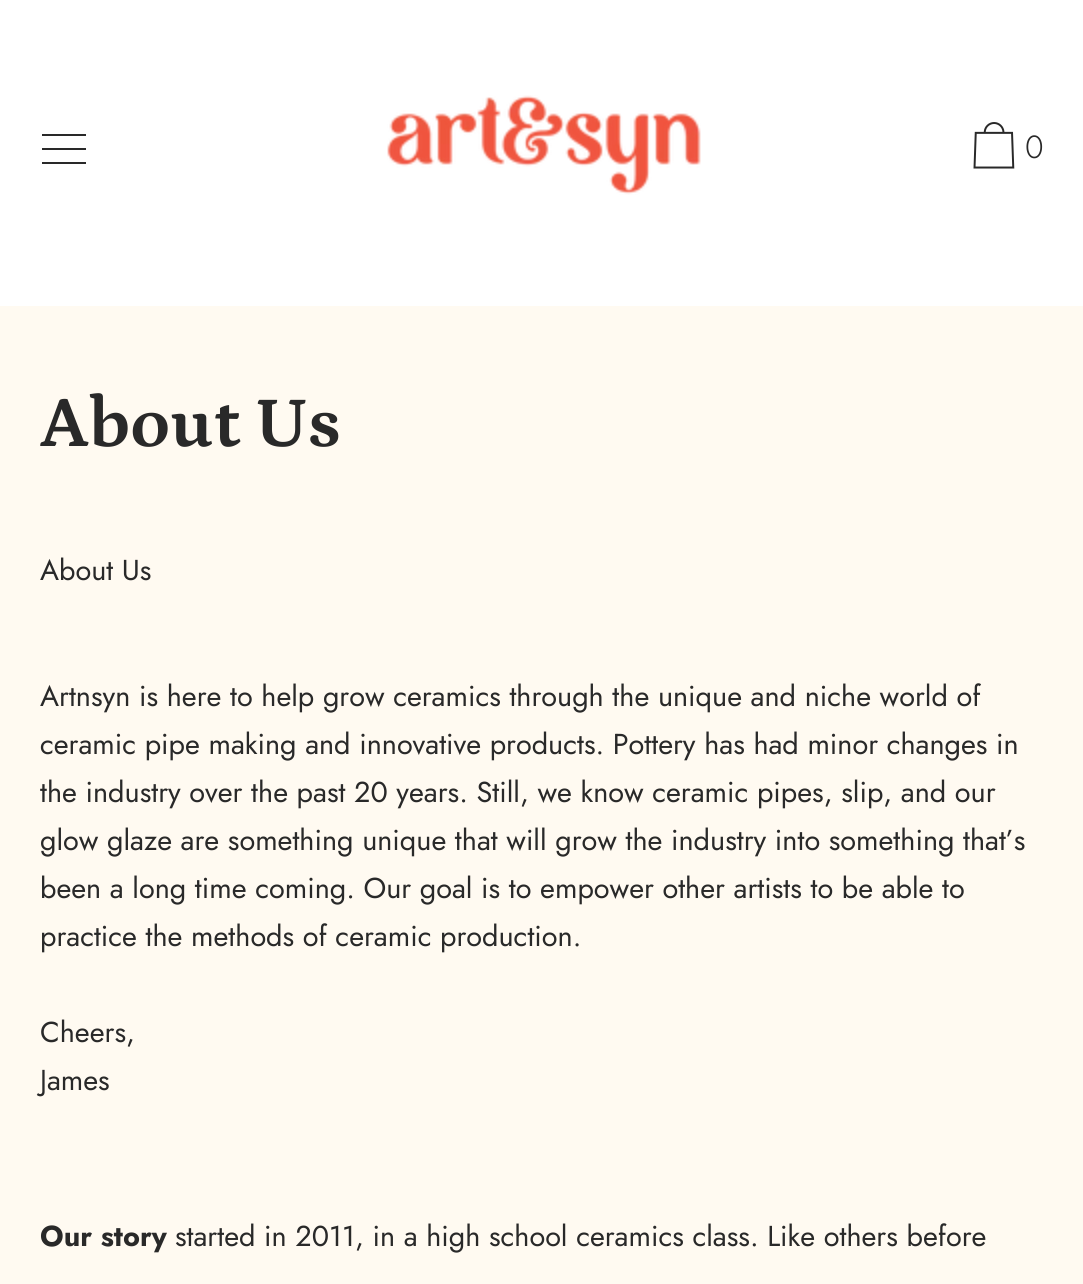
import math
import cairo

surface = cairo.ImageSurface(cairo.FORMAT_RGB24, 1083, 1284)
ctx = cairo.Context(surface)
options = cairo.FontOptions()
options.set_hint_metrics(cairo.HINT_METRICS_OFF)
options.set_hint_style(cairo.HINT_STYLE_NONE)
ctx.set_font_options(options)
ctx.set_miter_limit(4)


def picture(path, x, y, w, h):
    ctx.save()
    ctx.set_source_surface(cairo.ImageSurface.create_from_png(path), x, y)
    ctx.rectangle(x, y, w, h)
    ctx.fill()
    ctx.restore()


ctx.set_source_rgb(1, 1, 1)
ctx.paint()
ctx.set_source_rgb(0.161, 0.161, 0.161)
ctx.set_fill_rule(cairo.FILL_RULE_EVEN_ODD)
ctx.new_path()
ctx.move_to(42, 162)
ctx.line_to(86, 162)
ctx.line_to(86, 164)
ctx.line_to(42, 164)
ctx.close_path()
ctx.move_to(42, 148)
ctx.line_to(86, 148)
ctx.line_to(86, 150)
ctx.line_to(42, 150)
ctx.close_path()
ctx.move_to(42, 134)
ctx.line_to(86, 134)
ctx.line_to(86, 136)
ctx.line_to(42, 136)
ctx.close_path()
ctx.fill()
picture("img1.png", 387, 95, 314, 100)
picture("img2.png", 973, 122, 42, 47)
ctx.select_font_face("Jost Light")
ctx.set_font_size(32)
ctx.move_to(1025, 158)
ctx.show_text("0")
ctx.set_source_rgb(1, 0.98, 0.945)
ctx.rectangle(0, 306, 1083, 978)
ctx.fill()
ctx.select_font_face("Petrona", cairo.FONT_SLANT_NORMAL, cairo.FONT_WEIGHT_BOLD)
ctx.set_font_size(72)
ctx.set_source_rgb(0.161, 0.161, 0.161)
ctx.move_to(40, 446)
ctx.show_text("About Us")
ctx.select_font_face("Jost")
ctx.set_font_size(28.8)
ctx.move_to(40, 580)
ctx.show_text("About Us")
ctx.move_to(40, 706)
ctx.show_text("Artnsyn is here to help grow ceramics through the unique and niche world of")
ctx.move_to(40, 754)
ctx.show_text("ceramic pipe making and innovative products. Pottery has had minor changes in")
ctx.move_to(40, 802)
ctx.show_text("the industry over the past 20 years. Still, we know ceramic pipes, slip, and our")
ctx.move_to(40, 850)
ctx.show_text("glow glaze are something unique that will grow the industry into something that’s")
ctx.move_to(40, 898)
ctx.show_text("been a long time coming. Our goal is to empower other artists to be able to")
ctx.move_to(40, 946)
ctx.show_text("practice the methods of ceramic production.")
ctx.move_to(40, 1042)
ctx.show_text("Cheers,")
ctx.move_to(40, 1090)
ctx.show_text("James")
ctx.select_font_face("Jost", cairo.FONT_SLANT_NORMAL, cairo.FONT_WEIGHT_BOLD)
ctx.move_to(40, 1246)
ctx.show_text("Our story")
ctx.select_font_face("Jost")
ctx.move_to(175, 1246)
ctx.show_text("started in 2011, in a high school ceramics class. Like others before")
surface.write_to_png("page.png")
